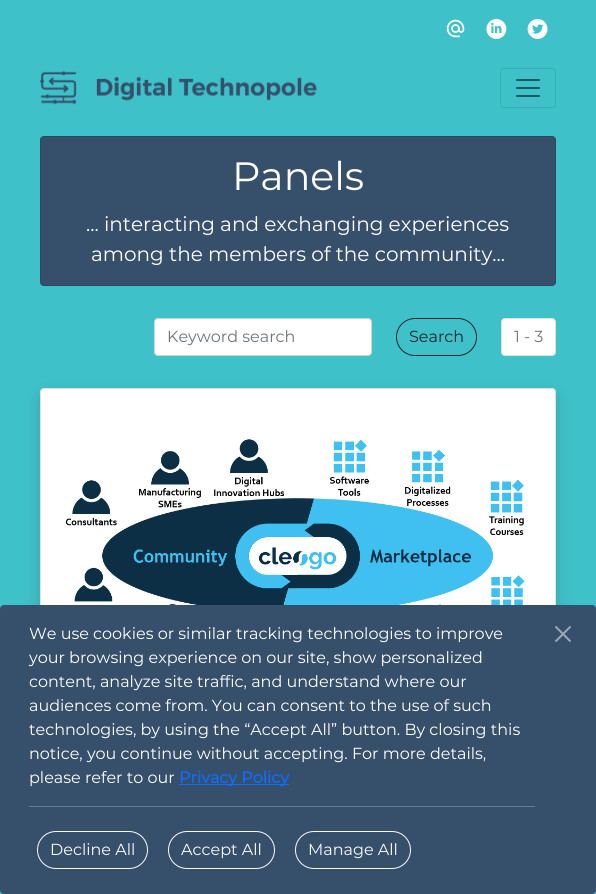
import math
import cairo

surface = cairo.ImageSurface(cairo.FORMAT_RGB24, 596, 894)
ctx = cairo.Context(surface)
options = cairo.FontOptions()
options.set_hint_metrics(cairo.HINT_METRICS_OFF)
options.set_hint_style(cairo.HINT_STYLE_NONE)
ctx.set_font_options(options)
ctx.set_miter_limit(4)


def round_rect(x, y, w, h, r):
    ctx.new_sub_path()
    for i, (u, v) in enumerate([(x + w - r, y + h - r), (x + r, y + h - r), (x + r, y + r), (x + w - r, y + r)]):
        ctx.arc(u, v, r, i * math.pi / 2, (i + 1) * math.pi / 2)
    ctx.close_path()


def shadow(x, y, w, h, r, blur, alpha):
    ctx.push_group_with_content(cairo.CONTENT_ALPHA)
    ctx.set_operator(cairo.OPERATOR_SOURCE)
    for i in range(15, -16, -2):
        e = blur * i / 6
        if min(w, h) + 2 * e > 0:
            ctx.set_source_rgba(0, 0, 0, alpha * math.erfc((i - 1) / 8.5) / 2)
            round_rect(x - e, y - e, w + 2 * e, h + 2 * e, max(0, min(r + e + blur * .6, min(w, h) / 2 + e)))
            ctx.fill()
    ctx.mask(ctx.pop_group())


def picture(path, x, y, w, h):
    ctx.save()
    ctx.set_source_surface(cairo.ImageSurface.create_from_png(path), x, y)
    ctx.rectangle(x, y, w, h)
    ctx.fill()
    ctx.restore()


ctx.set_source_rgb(0.247, 0.757, 0.788)
ctx.paint()
picture("img1.png", 446, 19, 19, 19)
picture("img2.png", 486, 19, 21, 20)
picture("img3.png", 527, 19, 21, 20)
picture("img4.png", 40, 71, 277, 34)
round_rect(500.5, 68.5, 55, 39, 3.5)
ctx.set_source_rgb(0.224, 0.682, 0.71)
ctx.set_line_width(1)
ctx.stroke()
picture("img5.png", 516, 79, 24, 18)
ctx.set_source_rgb(0.212, 0.31, 0.42)
round_rect(40, 136, 516, 150, 4)
ctx.fill()
round_rect(40.5, 136.5, 515, 149, 3.5)
ctx.set_source_rgba(0, 0, 0, 0.12)
ctx.stroke()
ctx.select_font_face("Montserrat Thin")
ctx.set_font_size(39.5)
ctx.set_source_rgb(1, 1, 1)
ctx.move_to(232, 190)
ctx.show_text("Panels")
ctx.set_font_size(20)
ctx.move_to(86, 231)
ctx.show_text("... interacting and exchanging experiences")
ctx.move_to(91, 261)
ctx.show_text("among the members of the community...")
round_rect(154.5, 318.5, 217, 37, 3.5)
ctx.fill_preserve()
ctx.set_source_rgb(0.808, 0.831, 0.855)
ctx.stroke()
ctx.set_font_size(16)
ctx.set_source_rgb(0.424, 0.459, 0.49)
ctx.move_to(167, 342)
ctx.show_text("Keyword search")
round_rect(396.5, 318.5, 80, 37, 18.5)
ctx.set_source_rgb(0.129, 0.145, 0.161)
ctx.stroke()
ctx.move_to(409, 342)
ctx.show_text("Search")
ctx.set_source_rgb(1, 1, 1)
round_rect(501.5, 318.5, 54, 37, 3.5)
ctx.fill_preserve()
ctx.set_source_rgb(0.871, 0.886, 0.902)
ctx.stroke()
ctx.set_source_rgb(0.424, 0.459, 0.49)
ctx.move_to(514, 342)
ctx.show_text("1 - 3")
ctx.set_source_rgb(0, 0, 0)
shadow(40, 396, 516, 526, 4, 8, 0.15)
ctx.set_source_rgb(1, 1, 1)
round_rect(40, 388, 516, 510, 4)
ctx.fill()
round_rect(40.5, 388.5, 515, 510, 3.5)
ctx.set_source_rgba(0, 0, 0, 0.12)
ctx.stroke()
picture("img6.png", 65, 439, 460, 166)
ctx.set_source_rgb(0.212, 0.31, 0.42)
round_rect(0, 605, 596, 289, 4)
ctx.fill()
ctx.set_source_rgb(1, 1, 1)
ctx.move_to(29, 639)
ctx.show_text("We use cookies or similar tracking technologies to improve")
picture("img7.png", 555, 626, 16, 16)
ctx.move_to(29, 663)
ctx.show_text("your browsing experience on our site, show personalized")
ctx.move_to(29, 687)
ctx.show_text("content, analyze site traffic, and understand where our")
ctx.move_to(29, 711)
ctx.show_text("audiences come from. You can consent to the use of such")
ctx.move_to(29, 735)
ctx.show_text("technologies, by using the “Accept All” button. By closing this")
ctx.move_to(29, 759)
ctx.show_text("notice, you continue without accepting. For more details,")
ctx.move_to(29, 783)
ctx.show_text("please refer to our")
ctx.set_source_rgb(0.051, 0.431, 0.992)
ctx.rectangle(179, 784, 110, 1)
ctx.fill()
ctx.select_font_face("Montserrat", cairo.FONT_SLANT_NORMAL, cairo.FONT_WEIGHT_BOLD)
ctx.move_to(179, 783)
ctx.show_text("Privacy Policy")
ctx.set_source_rgb(0.408, 0.482, 0.565)
ctx.rectangle(29, 806, 506, 1)
ctx.fill()
round_rect(37.5, 831.5, 110, 37, 18.5)
ctx.set_source_rgb(0.973, 0.976, 0.98)
ctx.stroke()
ctx.select_font_face("Montserrat Thin")
ctx.move_to(50, 855)
ctx.show_text("Decline All")
round_rect(168.5, 831.5, 106, 37, 18.5)
ctx.stroke()
ctx.move_to(181, 855)
ctx.show_text("Accept All")
round_rect(295.5, 831.5, 115, 37, 18.5)
ctx.stroke()
ctx.move_to(308, 855)
ctx.show_text("Manage All")
surface.write_to_png("page.png")
